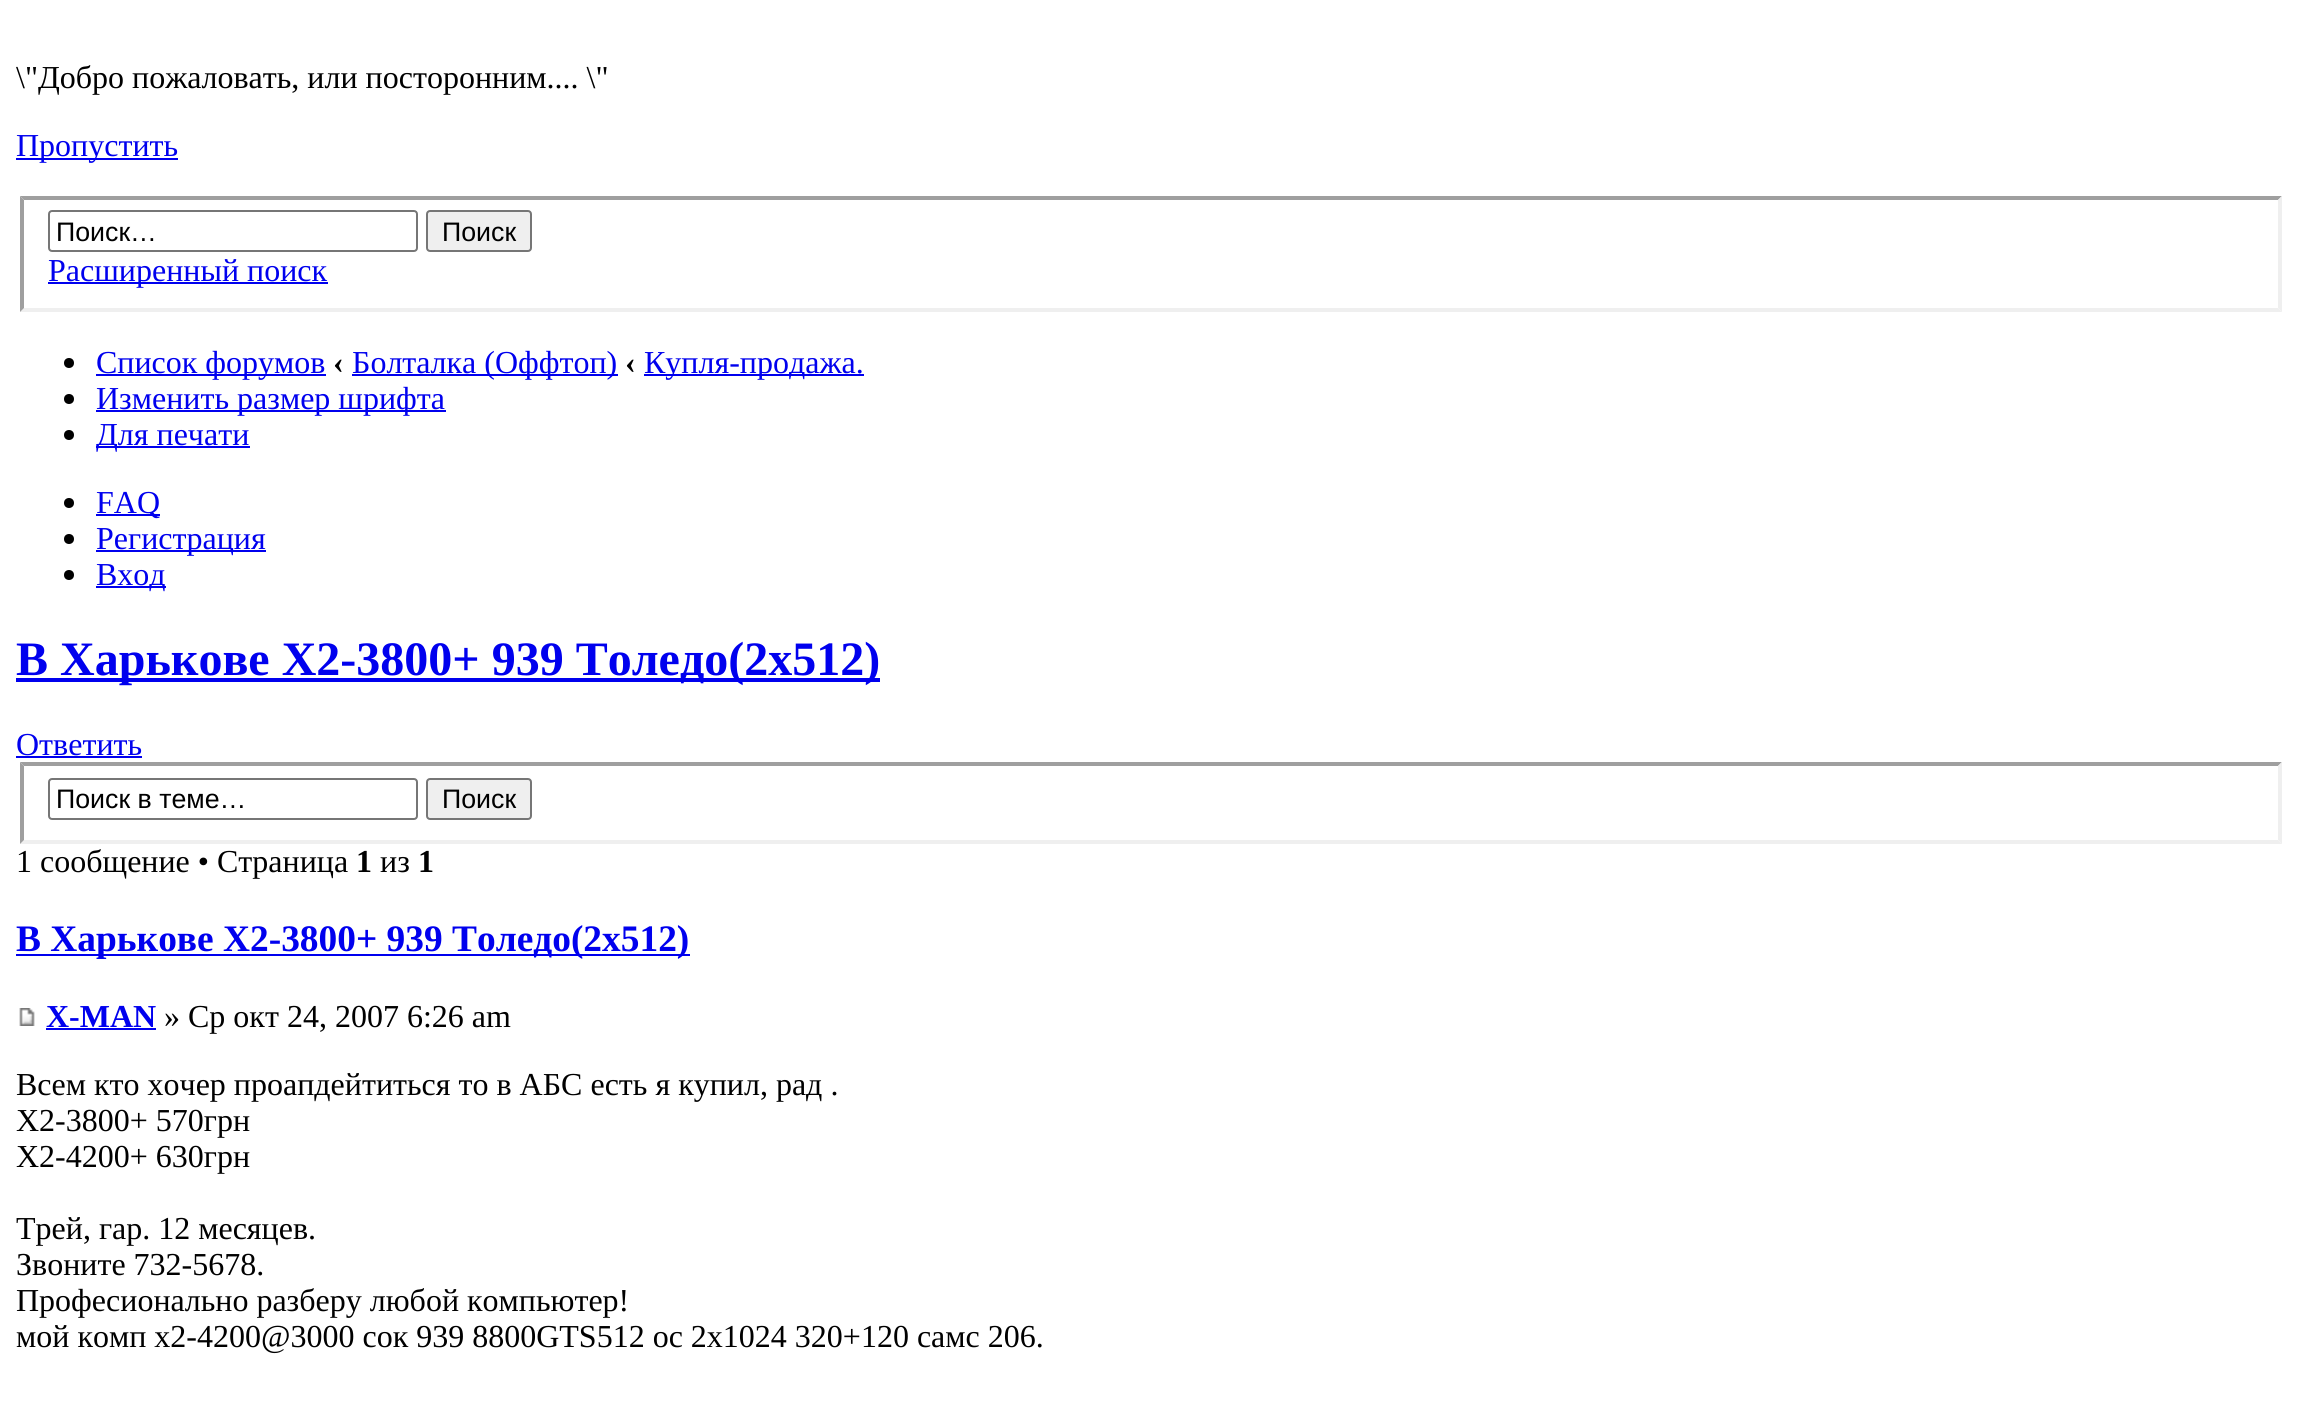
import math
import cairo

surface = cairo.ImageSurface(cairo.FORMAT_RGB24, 2302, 1427)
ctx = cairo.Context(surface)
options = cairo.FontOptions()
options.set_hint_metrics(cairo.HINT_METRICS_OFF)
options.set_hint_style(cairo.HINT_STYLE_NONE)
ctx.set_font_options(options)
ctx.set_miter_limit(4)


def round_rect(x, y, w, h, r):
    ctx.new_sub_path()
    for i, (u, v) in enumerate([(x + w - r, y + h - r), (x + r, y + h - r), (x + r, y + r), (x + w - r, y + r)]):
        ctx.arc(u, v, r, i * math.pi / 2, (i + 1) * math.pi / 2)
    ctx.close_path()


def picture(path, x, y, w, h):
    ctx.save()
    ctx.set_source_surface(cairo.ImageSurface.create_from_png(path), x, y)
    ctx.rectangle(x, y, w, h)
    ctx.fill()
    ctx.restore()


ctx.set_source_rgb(1, 1, 1)
ctx.paint()
ctx.select_font_face("Liberation Serif")
ctx.set_font_size(32)
ctx.set_source_rgb(0, 0, 0)
ctx.move_to(16, 88)
ctx.show_text("\\\"Добро пожаловать, или посторонним.... \\\"")
ctx.set_source_rgb(0, 0, 0.933)
ctx.rectangle(16, 158, 162, 2)
ctx.fill()
ctx.move_to(16, 156)
ctx.show_text("Пропустить")
ctx.set_source_rgb(0.624, 0.624, 0.624)
ctx.new_path()
ctx.move_to(20, 196)
ctx.line_to(2282, 196)
ctx.line_to(2278, 200)
ctx.line_to(24, 200)
ctx.close_path()
ctx.fill()
ctx.set_source_rgb(0.937, 0.937, 0.937)
ctx.new_path()
ctx.move_to(2282, 196)
ctx.line_to(2282, 312)
ctx.line_to(2278, 308)
ctx.line_to(2278, 200)
ctx.close_path()
ctx.fill()
ctx.new_path()
ctx.move_to(2282, 312)
ctx.line_to(20, 312)
ctx.line_to(24, 308)
ctx.line_to(2278, 308)
ctx.close_path()
ctx.fill()
ctx.set_source_rgb(0.624, 0.624, 0.624)
ctx.new_path()
ctx.move_to(20, 312)
ctx.line_to(20, 196)
ctx.line_to(24, 200)
ctx.line_to(24, 308)
ctx.close_path()
ctx.fill()
round_rect(49, 211, 368, 40, 3)
ctx.set_source_rgb(0.463, 0.463, 0.463)
ctx.stroke()
ctx.select_font_face("Liberation Sans")
ctx.set_font_size(26.75)
ctx.set_source_rgb(0, 0, 0)
ctx.move_to(56, 241)
ctx.show_text("Поиск…")
ctx.set_source_rgb(0.937, 0.937, 0.937)
round_rect(427, 211, 104, 40, 3)
ctx.fill_preserve()
ctx.set_source_rgb(0.463, 0.463, 0.463)
ctx.stroke()
ctx.set_source_rgb(0, 0, 0)
ctx.move_to(442, 241)
ctx.show_text("Поиск")
ctx.set_source_rgb(0, 0, 0.933)
ctx.rectangle(48, 282, 280, 2)
ctx.fill()
ctx.select_font_face("Liberation Serif")
ctx.set_font_size(32)
ctx.move_to(48, 281)
ctx.show_text("Расширенный поиск")
ctx.set_source_rgb(0, 0, 0)
ctx.new_path()
ctx.arc(69, 363, 5, 0, 2 * math.pi)
ctx.fill()
ctx.set_source_rgb(0, 0, 0.933)
ctx.rectangle(96, 374, 230, 2)
ctx.fill()
ctx.move_to(96, 373)
ctx.show_text("Список форумов")
ctx.select_font_face("Liberation Serif", cairo.FONT_SLANT_NORMAL, cairo.FONT_WEIGHT_BOLD)
ctx.set_source_rgb(0, 0, 0)
ctx.move_to(333, 373)
ctx.show_text("‹")
ctx.set_source_rgb(0, 0, 0.933)
ctx.rectangle(352, 374, 266, 2)
ctx.fill()
ctx.select_font_face("Liberation Serif")
ctx.move_to(352, 373)
ctx.show_text("Болталка (Оффтоп)")
ctx.select_font_face("Liberation Serif", cairo.FONT_SLANT_NORMAL, cairo.FONT_WEIGHT_BOLD)
ctx.set_source_rgb(0, 0, 0)
ctx.move_to(625, 373)
ctx.show_text("‹")
ctx.set_source_rgb(0, 0, 0.933)
ctx.rectangle(644, 374, 220, 2)
ctx.fill()
ctx.select_font_face("Liberation Serif")
ctx.move_to(644, 373)
ctx.show_text("Купля-продажа.")
ctx.set_source_rgb(0, 0, 0)
ctx.new_path()
ctx.arc(69, 399, 5, 0, 2 * math.pi)
ctx.fill()
ctx.set_source_rgb(0, 0, 0.933)
ctx.rectangle(96, 410, 350, 2)
ctx.fill()
ctx.move_to(96, 409)
ctx.show_text("Изменить размер шрифта")
ctx.set_source_rgb(0, 0, 0)
ctx.new_path()
ctx.arc(69, 435, 5, 0, 2 * math.pi)
ctx.fill()
ctx.set_source_rgb(0, 0, 0.933)
ctx.rectangle(96, 446, 154, 2)
ctx.fill()
ctx.move_to(96, 445)
ctx.show_text("Для печати")
ctx.set_source_rgb(0, 0, 0)
ctx.new_path()
ctx.arc(69, 503, 5, 0, 2 * math.pi)
ctx.fill()
ctx.set_source_rgb(0, 0, 0.933)
ctx.rectangle(96, 514, 64, 2)
ctx.fill()
ctx.move_to(96, 513)
ctx.show_text("FAQ")
ctx.set_source_rgb(0, 0, 0)
ctx.new_path()
ctx.arc(69, 539, 5, 0, 2 * math.pi)
ctx.fill()
ctx.set_source_rgb(0, 0, 0.933)
ctx.rectangle(96, 550, 170, 2)
ctx.fill()
ctx.move_to(96, 549)
ctx.show_text("Регистрация")
ctx.set_source_rgb(0, 0, 0)
ctx.new_path()
ctx.arc(69, 575, 5, 0, 2 * math.pi)
ctx.fill()
ctx.set_source_rgb(0, 0, 0.933)
ctx.rectangle(96, 586, 70, 2)
ctx.fill()
ctx.move_to(96, 585)
ctx.show_text("Вход")
ctx.rectangle(16, 678, 864, 4)
ctx.fill()
ctx.select_font_face("Liberation Serif", cairo.FONT_SLANT_NORMAL, cairo.FONT_WEIGHT_BOLD)
ctx.set_font_size(48)
ctx.move_to(16, 675)
ctx.show_text("В Харькове Х2-3800+ 939 Толедо(2х512)")
ctx.select_font_face("Liberation Serif")
ctx.set_font_size(32)
ctx.move_to(16, 755)
ctx.show_text("Ответить")
ctx.rectangle(16, 756, 126, 2)
ctx.fill()
ctx.set_source_rgb(0.624, 0.624, 0.624)
ctx.new_path()
ctx.move_to(20, 762)
ctx.line_to(2282, 762)
ctx.line_to(2278, 766)
ctx.line_to(24, 766)
ctx.close_path()
ctx.fill()
ctx.set_source_rgb(0.937, 0.937, 0.937)
ctx.new_path()
ctx.move_to(2282, 762)
ctx.line_to(2282, 844)
ctx.line_to(2278, 840)
ctx.line_to(2278, 766)
ctx.close_path()
ctx.fill()
ctx.new_path()
ctx.move_to(2282, 844)
ctx.line_to(20, 844)
ctx.line_to(24, 840)
ctx.line_to(2278, 840)
ctx.close_path()
ctx.fill()
ctx.set_source_rgb(0.624, 0.624, 0.624)
ctx.new_path()
ctx.move_to(20, 844)
ctx.line_to(20, 762)
ctx.line_to(24, 766)
ctx.line_to(24, 840)
ctx.close_path()
ctx.fill()
round_rect(49, 779, 368, 40, 3)
ctx.set_source_rgb(0.463, 0.463, 0.463)
ctx.stroke()
ctx.select_font_face("Liberation Sans")
ctx.set_font_size(26.75)
ctx.set_source_rgb(0, 0, 0)
ctx.move_to(56, 808)
ctx.show_text("Поиск в теме…")
ctx.set_source_rgb(0.937, 0.937, 0.937)
round_rect(427, 779, 104, 40, 3)
ctx.fill_preserve()
ctx.set_source_rgb(0.463, 0.463, 0.463)
ctx.stroke()
ctx.set_source_rgb(0, 0, 0)
ctx.move_to(442, 808)
ctx.show_text("Поиск")
ctx.select_font_face("Liberation Serif")
ctx.set_font_size(32)
ctx.move_to(16, 872)
ctx.show_text("1 сообщение • Страница")
ctx.select_font_face("Liberation Serif", cairo.FONT_SLANT_NORMAL, cairo.FONT_WEIGHT_BOLD)
ctx.move_to(356, 872)
ctx.show_text("1")
ctx.select_font_face("Liberation Serif")
ctx.move_to(380, 872)
ctx.show_text("из")
ctx.select_font_face("Liberation Serif", cairo.FONT_SLANT_NORMAL, cairo.FONT_WEIGHT_BOLD)
ctx.move_to(418, 872)
ctx.show_text("1")
ctx.set_source_rgb(0, 0, 0.933)
ctx.rectangle(16, 954, 674, 2)
ctx.fill()
ctx.set_font_size(37.4)
ctx.move_to(16, 951)
ctx.show_text("В Харькове Х2-3800+ 939 Толедо(2х512)")
picture("img1.png", 19, 1008, 16, 18)
ctx.set_font_size(32)
ctx.move_to(46, 1027)
ctx.show_text("X-MAN")
ctx.rectangle(46, 1028, 110, 2)
ctx.fill()
ctx.select_font_face("Liberation Serif")
ctx.set_source_rgb(0, 0, 0)
ctx.move_to(164, 1027)
ctx.show_text("» Ср окт 24, 2007 6:26 am")
ctx.move_to(16, 1095)
ctx.show_text("Всем кто хочер проапдейтиться то в АБС есть я купил, рад .")
ctx.move_to(16, 1131)
ctx.show_text("Х2-3800+ 570грн")
ctx.move_to(16, 1167)
ctx.show_text("Х2-4200+ 630грн")
ctx.move_to(16, 1239)
ctx.show_text("Трей, гар. 12 месяцев.")
ctx.move_to(16, 1275)
ctx.show_text("Звоните 732-5678.")
ctx.move_to(16, 1311)
ctx.show_text("Професионально разберу любой компьютер!")
ctx.move_to(16, 1347)
ctx.show_text("мой комп х2-4200@3000 сок 939 8800GTS512 oc 2x1024 320+120 самс 206.")
surface.write_to_png("page.png")
